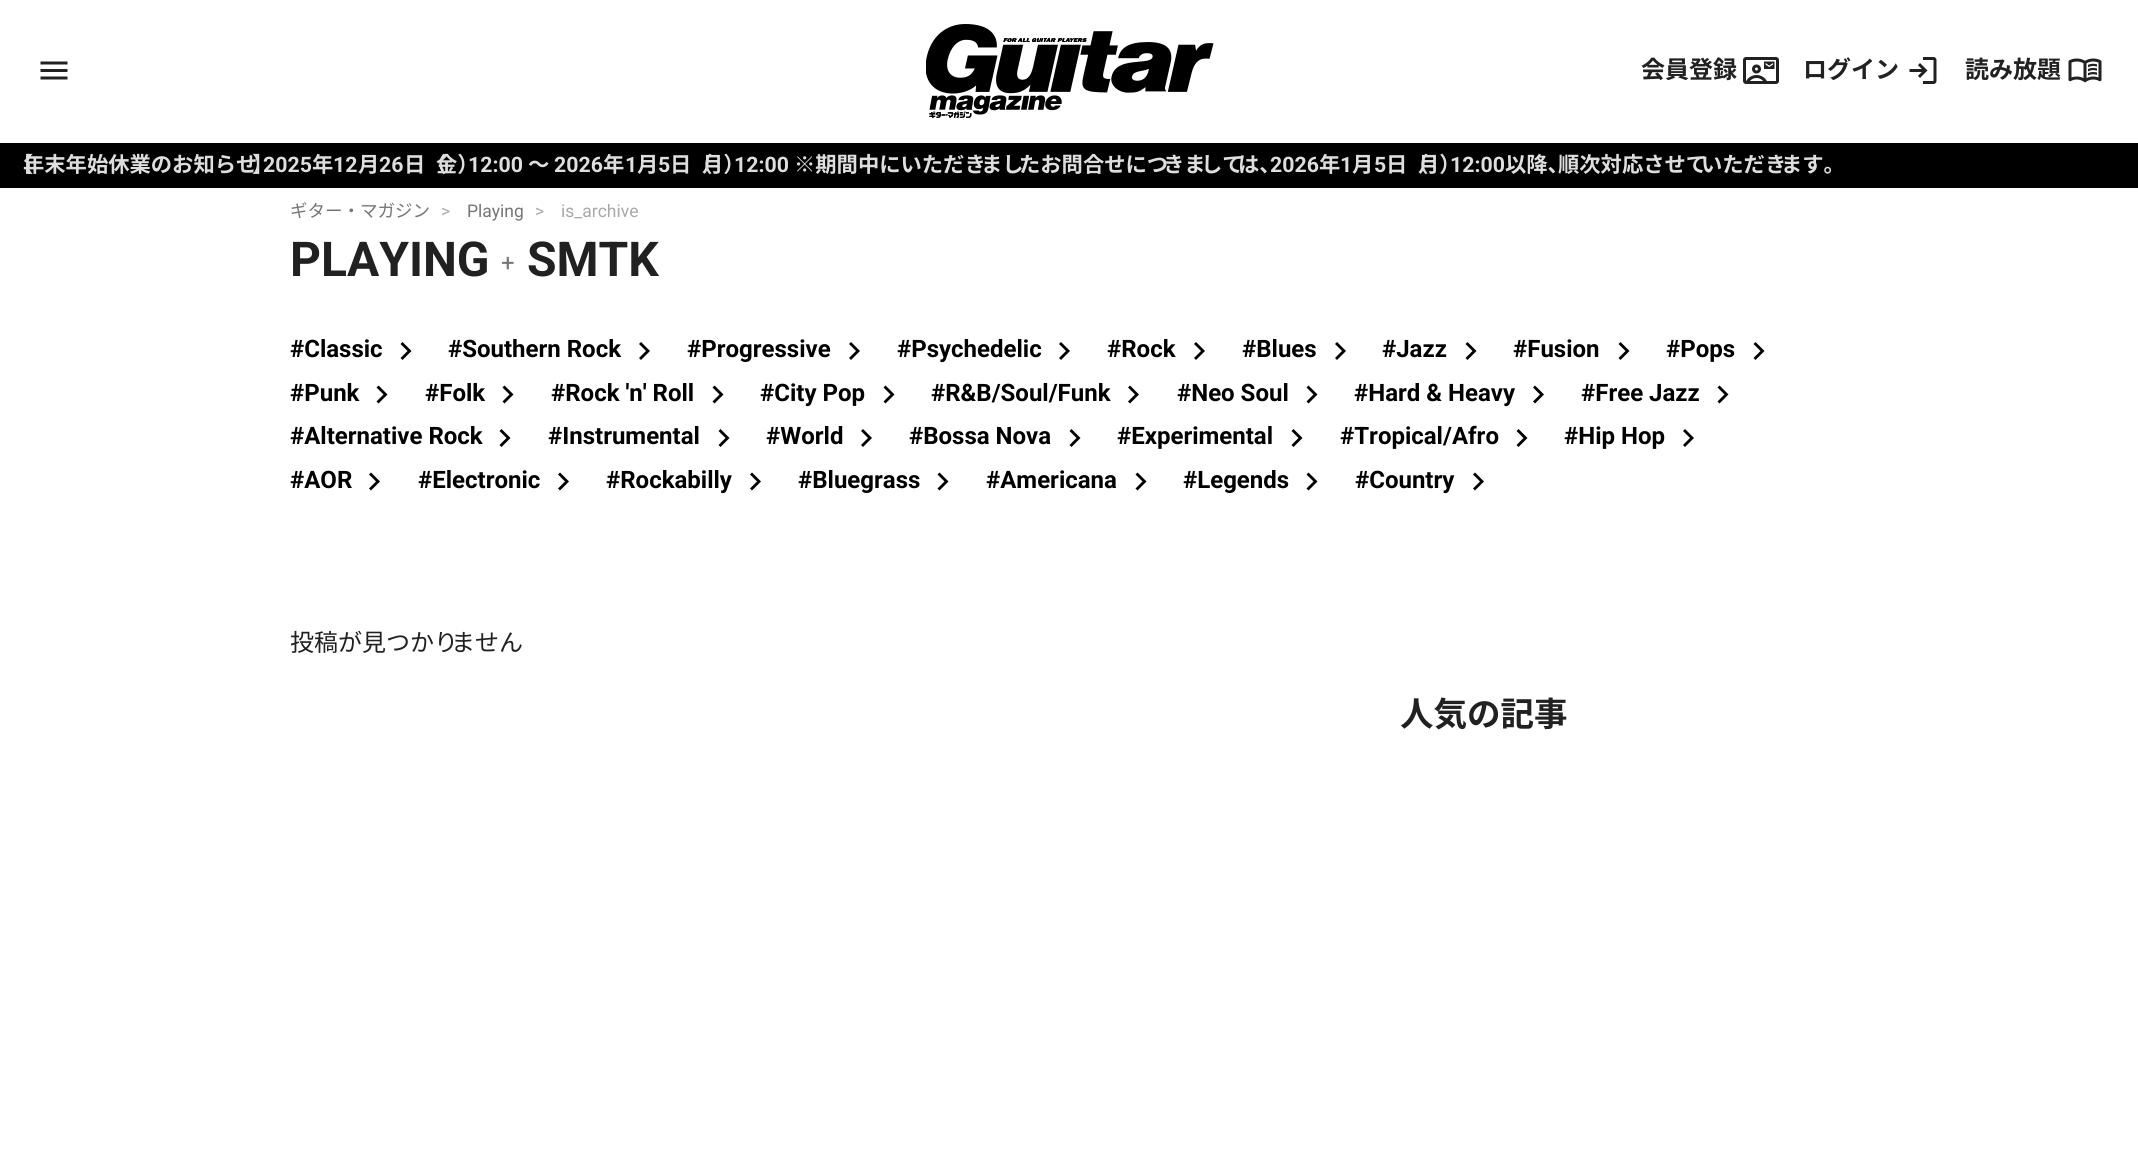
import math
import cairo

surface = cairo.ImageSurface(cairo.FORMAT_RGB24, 2138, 1167)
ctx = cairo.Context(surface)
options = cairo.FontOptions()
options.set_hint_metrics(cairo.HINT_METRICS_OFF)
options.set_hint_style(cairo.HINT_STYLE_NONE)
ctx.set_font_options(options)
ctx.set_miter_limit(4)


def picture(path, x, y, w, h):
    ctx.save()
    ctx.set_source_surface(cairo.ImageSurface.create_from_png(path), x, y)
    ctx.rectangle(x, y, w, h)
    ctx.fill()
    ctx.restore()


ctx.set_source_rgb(1, 1, 1)
ctx.paint()
picture("img1.png", 926, 24, 288, 94)
picture("img2.png", 40, 61, 28, 19)
ctx.select_font_face("Noto Sans JP", cairo.FONT_SLANT_NORMAL, cairo.FONT_WEIGHT_BOLD)
ctx.set_font_size(24)
ctx.set_source_rgb(0.129, 0.129, 0.129)
ctx.move_to(1641, 78)
ctx.show_text("会員登録")
picture("img3.png", 1743, 57, 36, 27)
ctx.move_to(1803, 78)
ctx.show_text("ログイン")
picture("img4.png", 1909, 57, 28, 27)
ctx.move_to(1965, 78)
ctx.show_text("読み放題")
picture("img5.png", 2068, 58, 34, 25)
ctx.set_source_rgb(0, 0, 0)
ctx.rectangle(0, 143, 2138, 45)
ctx.fill()
ctx.set_font_size(21.3)
ctx.set_source_rgb(0.871, 0.871, 0.871)
ctx.move_to(12, 172)
ctx.show_text("【")
ctx.move_to(23, 172)
ctx.show_text("年末年始休業のお知らせ")
ctx.move_to(252, 172)
ctx.show_text("】")
ctx.select_font_face("Roboto", cairo.FONT_SLANT_NORMAL, cairo.FONT_WEIGHT_BOLD)
ctx.move_to(263, 172)
ctx.show_text("2025")
ctx.select_font_face("Noto Sans JP", cairo.FONT_SLANT_NORMAL, cairo.FONT_WEIGHT_BOLD)
ctx.move_to(312, 172)
ctx.show_text("年")
ctx.select_font_face("Roboto", cairo.FONT_SLANT_NORMAL, cairo.FONT_WEIGHT_BOLD)
ctx.move_to(333, 172)
ctx.show_text("12")
ctx.select_font_face("Noto Sans JP", cairo.FONT_SLANT_NORMAL, cairo.FONT_WEIGHT_BOLD)
ctx.move_to(358, 172)
ctx.show_text("月")
ctx.select_font_face("Roboto", cairo.FONT_SLANT_NORMAL, cairo.FONT_WEIGHT_BOLD)
ctx.move_to(379, 172)
ctx.show_text("26")
ctx.select_font_face("Noto Sans JP", cairo.FONT_SLANT_NORMAL, cairo.FONT_WEIGHT_BOLD)
ctx.move_to(404, 172)
ctx.show_text("日（")
ctx.move_to(436, 172)
ctx.show_text("金）")
ctx.select_font_face("Roboto", cairo.FONT_SLANT_NORMAL, cairo.FONT_WEIGHT_BOLD)
ctx.move_to(468, 172)
ctx.show_text("12:00")
ctx.select_font_face("Noto Sans JP", cairo.FONT_SLANT_NORMAL, cairo.FONT_WEIGHT_BOLD)
ctx.move_to(528, 172)
ctx.show_text("～")
ctx.select_font_face("Roboto", cairo.FONT_SLANT_NORMAL, cairo.FONT_WEIGHT_BOLD)
ctx.move_to(554, 172)
ctx.show_text("2026")
ctx.select_font_face("Noto Sans JP", cairo.FONT_SLANT_NORMAL, cairo.FONT_WEIGHT_BOLD)
ctx.move_to(603, 172)
ctx.show_text("年")
ctx.select_font_face("Roboto", cairo.FONT_SLANT_NORMAL, cairo.FONT_WEIGHT_BOLD)
ctx.move_to(625, 172)
ctx.show_text("1")
ctx.select_font_face("Noto Sans JP", cairo.FONT_SLANT_NORMAL, cairo.FONT_WEIGHT_BOLD)
ctx.move_to(637, 172)
ctx.show_text("月")
ctx.select_font_face("Roboto", cairo.FONT_SLANT_NORMAL, cairo.FONT_WEIGHT_BOLD)
ctx.move_to(658, 172)
ctx.show_text("5")
ctx.select_font_face("Noto Sans JP", cairo.FONT_SLANT_NORMAL, cairo.FONT_WEIGHT_BOLD)
ctx.move_to(670, 172)
ctx.show_text("日（")
ctx.move_to(702, 172)
ctx.show_text("月）")
ctx.select_font_face("Roboto", cairo.FONT_SLANT_NORMAL, cairo.FONT_WEIGHT_BOLD)
ctx.move_to(734, 172)
ctx.show_text("12:00")
ctx.select_font_face("Noto Sans JP", cairo.FONT_SLANT_NORMAL, cairo.FONT_WEIGHT_BOLD)
ctx.move_to(794, 172)
ctx.show_text("※期間中にいただき")
ctx.move_to(981, 172)
ctx.show_text("まし")
ctx.move_to(1019, 172)
ctx.show_text("たお問合せにつ")
ctx.move_to(1163, 172)
ctx.show_text("きま")
ctx.move_to(1201, 172)
ctx.show_text("して")
ctx.move_to(1238, 172)
ctx.show_text("は、")
ctx.select_font_face("Roboto", cairo.FONT_SLANT_NORMAL, cairo.FONT_WEIGHT_BOLD)
ctx.move_to(1270, 172)
ctx.show_text("2026")
ctx.select_font_face("Noto Sans JP", cairo.FONT_SLANT_NORMAL, cairo.FONT_WEIGHT_BOLD)
ctx.move_to(1319, 172)
ctx.show_text("年")
ctx.select_font_face("Roboto", cairo.FONT_SLANT_NORMAL, cairo.FONT_WEIGHT_BOLD)
ctx.move_to(1340, 172)
ctx.show_text("1")
ctx.select_font_face("Noto Sans JP", cairo.FONT_SLANT_NORMAL, cairo.FONT_WEIGHT_BOLD)
ctx.move_to(1352, 172)
ctx.show_text("月")
ctx.select_font_face("Roboto", cairo.FONT_SLANT_NORMAL, cairo.FONT_WEIGHT_BOLD)
ctx.move_to(1374, 172)
ctx.show_text("5")
ctx.select_font_face("Noto Sans JP", cairo.FONT_SLANT_NORMAL, cairo.FONT_WEIGHT_BOLD)
ctx.move_to(1386, 172)
ctx.show_text("日（")
ctx.move_to(1418, 172)
ctx.show_text("月）")
ctx.select_font_face("Roboto", cairo.FONT_SLANT_NORMAL, cairo.FONT_WEIGHT_BOLD)
ctx.move_to(1450, 172)
ctx.show_text("12:00")
ctx.select_font_face("Noto Sans JP", cairo.FONT_SLANT_NORMAL, cairo.FONT_WEIGHT_BOLD)
ctx.move_to(1505, 172)
ctx.show_text("以降、")
ctx.move_to(1558, 172)
ctx.show_text("順次対応させて")
ctx.move_to(1701, 172)
ctx.show_text("いただき")
ctx.move_to(1781, 172)
ctx.show_text("ます。")
ctx.select_font_face("Noto Sans JP")
ctx.set_font_size(17.5)
ctx.set_source_rgb(0.459, 0.459, 0.459)
ctx.move_to(290, 217)
ctx.show_text("ギター・マガジン")
ctx.select_font_face("Roboto")
ctx.set_source_rgb(0.659, 0.659, 0.659)
ctx.move_to(441, 217)
ctx.show_text(">")
ctx.set_source_rgb(0.459, 0.459, 0.459)
ctx.move_to(467, 217)
ctx.show_text("Playing")
ctx.set_source_rgb(0.659, 0.659, 0.659)
ctx.move_to(535, 217)
ctx.show_text(">")
ctx.move_to(561, 217)
ctx.show_text("is_archive")
ctx.select_font_face("Roboto", cairo.FONT_SLANT_NORMAL, cairo.FONT_WEIGHT_BOLD)
ctx.set_font_size(48)
ctx.set_source_rgb(0.129, 0.129, 0.129)
ctx.move_to(290, 276)
ctx.show_text("PLAYING")
ctx.select_font_face("Roboto")
ctx.set_font_size(24)
ctx.set_source_rgb(0.459, 0.459, 0.459)
ctx.move_to(501, 271)
ctx.show_text("+")
ctx.select_font_face("Roboto", cairo.FONT_SLANT_NORMAL, cairo.FONT_WEIGHT_BOLD)
ctx.set_font_size(48)
ctx.set_source_rgb(0.129, 0.129, 0.129)
ctx.move_to(527, 276)
ctx.show_text("SMTK")
ctx.set_font_size(24)
ctx.set_source_rgb(0, 0, 0)
ctx.move_to(290, 357)
ctx.show_text("#Classic")
ctx.new_path()
ctx.move_to(407.5, 351)
ctx.line_to(400.5, 344)
ctx.line_to(402.5, 342)
ctx.line_to(411.5, 351)
ctx.line_to(402.5, 360)
ctx.line_to(400.5, 358)
ctx.close_path()
ctx.fill()
ctx.move_to(448, 357)
ctx.show_text("#Southern Rock")
ctx.new_path()
ctx.move_to(646, 351)
ctx.line_to(639, 344)
ctx.line_to(641, 342)
ctx.line_to(650, 351)
ctx.line_to(641, 360)
ctx.line_to(639, 358)
ctx.close_path()
ctx.fill()
ctx.move_to(687, 357)
ctx.show_text("#Progressive")
ctx.new_path()
ctx.move_to(856, 351)
ctx.line_to(849, 344)
ctx.line_to(851, 342)
ctx.line_to(860, 351)
ctx.line_to(851, 360)
ctx.line_to(849, 358)
ctx.close_path()
ctx.fill()
ctx.move_to(897, 357)
ctx.show_text("#Psychedelic")
ctx.new_path()
ctx.move_to(1066, 351)
ctx.line_to(1059, 344)
ctx.line_to(1061, 342)
ctx.line_to(1070, 351)
ctx.line_to(1061, 360)
ctx.line_to(1059, 358)
ctx.close_path()
ctx.fill()
ctx.move_to(1107, 357)
ctx.show_text("#Rock")
ctx.new_path()
ctx.move_to(1201, 351)
ctx.line_to(1194, 344)
ctx.line_to(1196, 342)
ctx.line_to(1205, 351)
ctx.line_to(1196, 360)
ctx.line_to(1194, 358)
ctx.close_path()
ctx.fill()
ctx.move_to(1242, 357)
ctx.show_text("#Blues")
ctx.new_path()
ctx.move_to(1342, 351)
ctx.line_to(1335, 344)
ctx.line_to(1337, 342)
ctx.line_to(1346, 351)
ctx.line_to(1337, 360)
ctx.line_to(1335, 358)
ctx.close_path()
ctx.fill()
ctx.move_to(1382, 357)
ctx.show_text("#Jazz")
ctx.new_path()
ctx.move_to(1472.5, 351)
ctx.line_to(1465.5, 344)
ctx.line_to(1467.5, 342)
ctx.line_to(1476.5, 351)
ctx.line_to(1467.5, 360)
ctx.line_to(1465.5, 358)
ctx.close_path()
ctx.fill()
ctx.move_to(1513, 357)
ctx.show_text("#Fusion")
ctx.new_path()
ctx.move_to(1625.5, 351)
ctx.line_to(1618.5, 344)
ctx.line_to(1620.5, 342)
ctx.line_to(1629.5, 351)
ctx.line_to(1620.5, 360)
ctx.line_to(1618.5, 358)
ctx.close_path()
ctx.fill()
ctx.move_to(1666, 357)
ctx.show_text("#Pops")
ctx.new_path()
ctx.move_to(1760.5, 351)
ctx.line_to(1753.5, 344)
ctx.line_to(1755.5, 342)
ctx.line_to(1764.5, 351)
ctx.line_to(1755.5, 360)
ctx.line_to(1753.5, 358)
ctx.close_path()
ctx.fill()
ctx.move_to(290, 401)
ctx.show_text("#Punk")
ctx.new_path()
ctx.move_to(383.5, 394.5)
ctx.line_to(376.5, 387.5)
ctx.line_to(378.5, 385.5)
ctx.line_to(387.5, 394.5)
ctx.line_to(378.5, 403.5)
ctx.line_to(376.5, 401.5)
ctx.close_path()
ctx.fill()
ctx.move_to(425, 401)
ctx.show_text("#Folk")
ctx.new_path()
ctx.move_to(509.5, 394.5)
ctx.line_to(502.5, 387.5)
ctx.line_to(504.5, 385.5)
ctx.line_to(513.5, 394.5)
ctx.line_to(504.5, 403.5)
ctx.line_to(502.5, 401.5)
ctx.close_path()
ctx.fill()
ctx.move_to(551, 401)
ctx.show_text("#Rock 'n' Roll")
ctx.new_path()
ctx.move_to(719.5, 394.5)
ctx.line_to(712.5, 387.5)
ctx.line_to(714.5, 385.5)
ctx.line_to(723.5, 394.5)
ctx.line_to(714.5, 403.5)
ctx.line_to(712.5, 401.5)
ctx.close_path()
ctx.fill()
ctx.move_to(760, 401)
ctx.show_text("#City Pop")
ctx.new_path()
ctx.move_to(890.5, 394.5)
ctx.line_to(883.5, 387.5)
ctx.line_to(885.5, 385.5)
ctx.line_to(894.5, 394.5)
ctx.line_to(885.5, 403.5)
ctx.line_to(883.5, 401.5)
ctx.close_path()
ctx.fill()
ctx.move_to(931, 401)
ctx.show_text("#R&B/Soul/Funk")
ctx.new_path()
ctx.move_to(1135, 394.5)
ctx.line_to(1128, 387.5)
ctx.line_to(1130, 385.5)
ctx.line_to(1139, 394.5)
ctx.line_to(1130, 403.5)
ctx.line_to(1128, 401.5)
ctx.close_path()
ctx.fill()
ctx.move_to(1177, 401)
ctx.show_text("#Neo Soul")
ctx.new_path()
ctx.move_to(1313.5, 394.5)
ctx.line_to(1306.5, 387.5)
ctx.line_to(1308.5, 385.5)
ctx.line_to(1317.5, 394.5)
ctx.line_to(1308.5, 403.5)
ctx.line_to(1306.5, 401.5)
ctx.close_path()
ctx.fill()
ctx.move_to(1354, 401)
ctx.show_text("#Hard & Heavy")
ctx.new_path()
ctx.move_to(1540, 394.5)
ctx.line_to(1533, 387.5)
ctx.line_to(1535, 385.5)
ctx.line_to(1544, 394.5)
ctx.line_to(1535, 403.5)
ctx.line_to(1533, 401.5)
ctx.close_path()
ctx.fill()
ctx.move_to(1581, 401)
ctx.show_text("#Free Jazz")
ctx.new_path()
ctx.move_to(1724.5, 394.5)
ctx.line_to(1717.5, 387.5)
ctx.line_to(1719.5, 385.5)
ctx.line_to(1728.5, 394.5)
ctx.line_to(1719.5, 403.5)
ctx.line_to(1717.5, 401.5)
ctx.close_path()
ctx.fill()
ctx.move_to(290, 444)
ctx.show_text("#Alternative Rock")
ctx.new_path()
ctx.move_to(506.5, 438)
ctx.line_to(499.5, 431)
ctx.line_to(501.5, 429)
ctx.line_to(510.5, 438)
ctx.line_to(501.5, 447)
ctx.line_to(499.5, 445)
ctx.close_path()
ctx.fill()
ctx.move_to(548, 444)
ctx.show_text("#Instrumental")
ctx.new_path()
ctx.move_to(725.5, 438)
ctx.line_to(718.5, 431)
ctx.line_to(720.5, 429)
ctx.line_to(729.5, 438)
ctx.line_to(720.5, 447)
ctx.line_to(718.5, 445)
ctx.close_path()
ctx.fill()
ctx.move_to(766, 444)
ctx.show_text("#World")
ctx.new_path()
ctx.move_to(868, 438)
ctx.line_to(861, 431)
ctx.line_to(863, 429)
ctx.line_to(872, 438)
ctx.line_to(863, 447)
ctx.line_to(861, 445)
ctx.close_path()
ctx.fill()
ctx.move_to(909, 444)
ctx.show_text("#Bossa Nova")
ctx.new_path()
ctx.move_to(1076.5, 438)
ctx.line_to(1069.5, 431)
ctx.line_to(1071.5, 429)
ctx.line_to(1080.5, 438)
ctx.line_to(1071.5, 447)
ctx.line_to(1069.5, 445)
ctx.close_path()
ctx.fill()
ctx.move_to(1117, 444)
ctx.show_text("#Experimental")
ctx.new_path()
ctx.move_to(1298.5, 438)
ctx.line_to(1291.5, 431)
ctx.line_to(1293.5, 429)
ctx.line_to(1302.5, 438)
ctx.line_to(1293.5, 447)
ctx.line_to(1291.5, 445)
ctx.close_path()
ctx.fill()
ctx.move_to(1340, 444)
ctx.show_text("#Tropical/Afro")
ctx.new_path()
ctx.move_to(1523.5, 438)
ctx.line_to(1516.5, 431)
ctx.line_to(1518.5, 429)
ctx.line_to(1527.5, 438)
ctx.line_to(1518.5, 447)
ctx.line_to(1516.5, 445)
ctx.close_path()
ctx.fill()
ctx.move_to(1564, 444)
ctx.show_text("#Hip Hop")
ctx.new_path()
ctx.move_to(1690, 438)
ctx.line_to(1683, 431)
ctx.line_to(1685, 429)
ctx.line_to(1694, 438)
ctx.line_to(1685, 447)
ctx.line_to(1683, 445)
ctx.close_path()
ctx.fill()
ctx.move_to(290, 488)
ctx.show_text("#AOR")
ctx.new_path()
ctx.move_to(376, 481.5)
ctx.line_to(369, 474.5)
ctx.line_to(371, 472.5)
ctx.line_to(380, 481.5)
ctx.line_to(371, 490.5)
ctx.line_to(369, 488.5)
ctx.close_path()
ctx.fill()
ctx.move_to(418, 488)
ctx.show_text("#Electronic")
ctx.new_path()
ctx.move_to(565, 481.5)
ctx.line_to(558, 474.5)
ctx.line_to(560, 472.5)
ctx.line_to(569, 481.5)
ctx.line_to(560, 490.5)
ctx.line_to(558, 488.5)
ctx.close_path()
ctx.fill()
ctx.move_to(606, 488)
ctx.show_text("#Rockabilly")
ctx.new_path()
ctx.move_to(757, 481.5)
ctx.line_to(750, 474.5)
ctx.line_to(752, 472.5)
ctx.line_to(761, 481.5)
ctx.line_to(752, 490.5)
ctx.line_to(750, 488.5)
ctx.close_path()
ctx.fill()
ctx.move_to(798, 488)
ctx.show_text("#Bluegrass")
ctx.new_path()
ctx.move_to(944.5, 481.5)
ctx.line_to(937.5, 474.5)
ctx.line_to(939.5, 472.5)
ctx.line_to(948.5, 481.5)
ctx.line_to(939.5, 490.5)
ctx.line_to(937.5, 488.5)
ctx.close_path()
ctx.fill()
ctx.move_to(986, 488)
ctx.show_text("#Americana")
ctx.new_path()
ctx.move_to(1142.5, 481.5)
ctx.line_to(1135.5, 474.5)
ctx.line_to(1137.5, 472.5)
ctx.line_to(1146.5, 481.5)
ctx.line_to(1137.5, 490.5)
ctx.line_to(1135.5, 488.5)
ctx.close_path()
ctx.fill()
ctx.move_to(1183, 488)
ctx.show_text("#Legends")
ctx.new_path()
ctx.move_to(1313.5, 481.5)
ctx.line_to(1306.5, 474.5)
ctx.line_to(1308.5, 472.5)
ctx.line_to(1317.5, 481.5)
ctx.line_to(1308.5, 490.5)
ctx.line_to(1306.5, 488.5)
ctx.close_path()
ctx.fill()
ctx.move_to(1355, 488)
ctx.show_text("#Country")
ctx.new_path()
ctx.move_to(1480, 481.5)
ctx.line_to(1473, 474.5)
ctx.line_to(1475, 472.5)
ctx.line_to(1484, 481.5)
ctx.line_to(1475, 490.5)
ctx.line_to(1473, 488.5)
ctx.close_path()
ctx.fill()
ctx.select_font_face("Noto Sans JP")
ctx.set_source_rgb(0.129, 0.129, 0.129)
ctx.move_to(290, 651)
ctx.show_text("投稿が見つかり")
ctx.move_to(451, 651)
ctx.show_text("ません")
ctx.select_font_face("Noto Sans JP", cairo.FONT_SLANT_NORMAL, cairo.FONT_WEIGHT_BOLD)
ctx.set_font_size(33.5)
ctx.move_to(1400, 726)
ctx.show_text("人気の記事")
surface.write_to_png("page.png")
